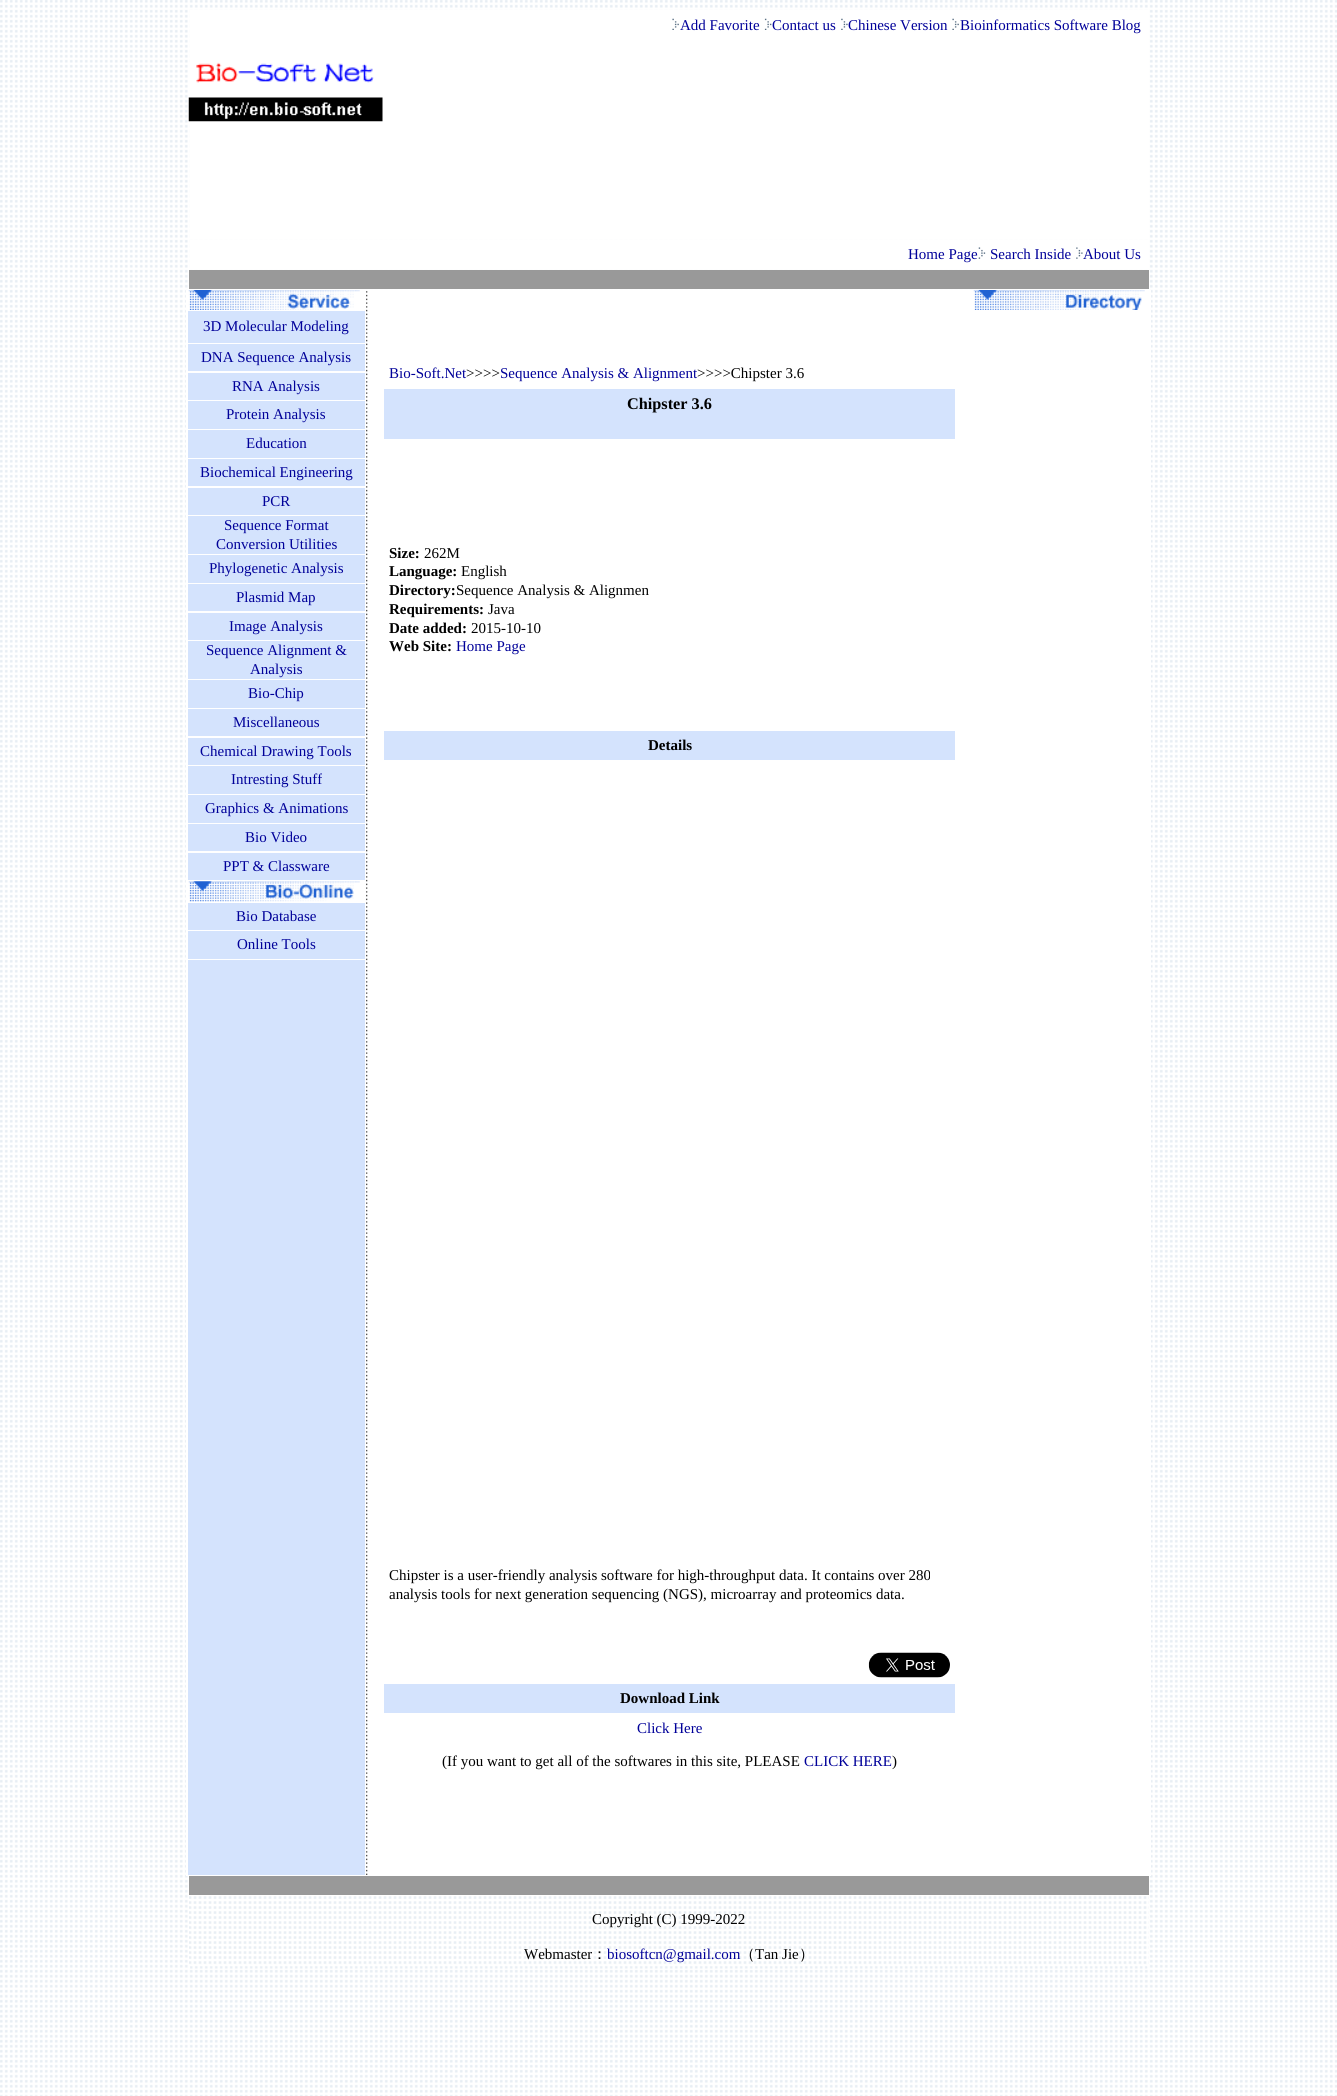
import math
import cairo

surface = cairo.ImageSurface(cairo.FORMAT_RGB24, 1337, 2096)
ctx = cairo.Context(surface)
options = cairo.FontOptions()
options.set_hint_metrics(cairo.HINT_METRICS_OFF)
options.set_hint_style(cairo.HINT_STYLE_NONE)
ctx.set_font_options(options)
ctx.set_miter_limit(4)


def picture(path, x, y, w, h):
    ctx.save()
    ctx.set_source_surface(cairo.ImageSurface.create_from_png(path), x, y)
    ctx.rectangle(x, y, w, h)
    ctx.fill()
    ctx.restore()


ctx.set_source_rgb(1, 1, 1)
ctx.paint()
picture("img1.png", 0, 0, 1337, 2096)
ctx.set_source_rgb(1, 1, 1)
ctx.rectangle(190, 10, 958, 228)
ctx.fill()
picture("img2.png", 672, 18, 7, 12)
ctx.select_font_face("Liberation Serif")
ctx.set_font_size(15)
ctx.set_source_rgb(0, 0, 0.6)
ctx.move_to(680, 30)
ctx.show_text("Add Favorite")
picture("img3.png", 764, 18, 8, 12)
ctx.move_to(772, 30)
ctx.show_text("Contact us")
picture("img4.png", 841, 18, 7, 12)
ctx.move_to(848, 30)
ctx.show_text("Chinese Version")
picture("img2.png", 952, 18, 7, 12)
ctx.move_to(960, 30)
ctx.show_text("Bioinformatics Software Blog")
picture("img5.png", 188, 62, 195, 60)
ctx.set_source_rgb(1, 1, 1)
ctx.rectangle(190, 240, 958, 28)
ctx.fill()
ctx.set_source_rgb(0, 0, 0.6)
ctx.move_to(908, 259)
ctx.show_text("Home Page")
picture("img6.png", 978, 247, 8, 12)
ctx.move_to(990, 259)
ctx.show_text("Search Inside")
picture("img7.png", 1076, 247, 7, 12)
ctx.move_to(1083, 259)
ctx.show_text("About Us")
ctx.set_source_rgb(0.6, 0.6, 0.6)
ctx.rectangle(189, 270, 960, 19)
ctx.fill()
ctx.set_source_rgb(1, 1, 1)
ctx.rectangle(186, 290, 965, 1586)
ctx.fill()
ctx.set_source_rgb(0.831, 0.89, 0.992)
ctx.rectangle(188, 311, 177, 32)
ctx.fill()
ctx.set_source_rgb(0, 0, 0.6)
ctx.move_to(203, 331)
ctx.show_text("3D Molecular Modeling")
ctx.set_source_rgb(0.831, 0.89, 0.992)
ctx.rectangle(188, 344, 177, 27)
ctx.fill()
ctx.set_source_rgb(0, 0, 0.6)
ctx.move_to(201, 362)
ctx.show_text("DNA Sequence Analysis")
ctx.set_source_rgb(0.831, 0.89, 0.992)
ctx.rectangle(188, 373, 177, 27)
ctx.fill()
ctx.set_source_rgb(0, 0, 0.6)
ctx.move_to(232, 391)
ctx.show_text("RNA Analysis")
picture("img8.png", 188, 290, 172, 20)
picture("img9.png", 366, 291, 2, 1584)
ctx.move_to(389, 378)
ctx.show_text("Bio-Soft.Net")
ctx.set_source_rgb(0, 0, 0)
ctx.move_to(466, 378)
ctx.show_text(">>>>")
ctx.set_source_rgb(0, 0, 0.6)
ctx.move_to(500, 378)
ctx.show_text("Sequence Analysis & Alignment")
ctx.set_source_rgb(0, 0, 0)
ctx.move_to(697, 378)
ctx.show_text(">>>>Chipster 3.6")
ctx.set_source_rgb(0.831, 0.89, 0.992)
ctx.rectangle(384, 389, 571, 50)
ctx.fill()
ctx.select_font_face("Liberation Serif", cairo.FONT_SLANT_NORMAL, cairo.FONT_WEIGHT_BOLD)
ctx.set_font_size(16.25)
ctx.set_source_rgb(0, 0, 0)
ctx.move_to(627, 409)
ctx.show_text("Chipster 3.6")
ctx.set_font_size(15)
ctx.move_to(389, 558)
ctx.show_text("Size:")
ctx.select_font_face("Liberation Serif")
ctx.move_to(424, 558)
ctx.show_text("262M")
ctx.select_font_face("Liberation Serif", cairo.FONT_SLANT_NORMAL, cairo.FONT_WEIGHT_BOLD)
ctx.move_to(389, 576)
ctx.show_text("Language:")
ctx.select_font_face("Liberation Serif")
ctx.move_to(461, 576)
ctx.show_text("English")
ctx.select_font_face("Liberation Serif", cairo.FONT_SLANT_NORMAL, cairo.FONT_WEIGHT_BOLD)
ctx.move_to(389, 595)
ctx.show_text("Directory:")
ctx.select_font_face("Liberation Serif")
ctx.move_to(456, 595)
ctx.show_text("Sequence Analysis & Alignmen")
ctx.select_font_face("Liberation Serif", cairo.FONT_SLANT_NORMAL, cairo.FONT_WEIGHT_BOLD)
ctx.move_to(389, 614)
ctx.show_text("Requirements:")
ctx.select_font_face("Liberation Serif")
ctx.move_to(488, 614)
ctx.show_text("Java")
ctx.select_font_face("Liberation Serif", cairo.FONT_SLANT_NORMAL, cairo.FONT_WEIGHT_BOLD)
ctx.move_to(389, 633)
ctx.show_text("Date added:")
ctx.select_font_face("Liberation Serif")
ctx.move_to(471, 633)
ctx.show_text("2015-10-10")
ctx.select_font_face("Liberation Serif", cairo.FONT_SLANT_NORMAL, cairo.FONT_WEIGHT_BOLD)
ctx.move_to(389, 651)
ctx.show_text("Web Site:")
ctx.select_font_face("Liberation Serif")
ctx.set_source_rgb(0, 0, 0.6)
ctx.move_to(456, 651)
ctx.show_text("Home Page")
ctx.set_source_rgb(0.831, 0.89, 0.992)
ctx.rectangle(384, 731, 571, 29)
ctx.fill()
ctx.select_font_face("Liberation Serif", cairo.FONT_SLANT_NORMAL, cairo.FONT_WEIGHT_BOLD)
ctx.set_source_rgb(0, 0, 0)
ctx.move_to(648, 750)
ctx.show_text("Details")
ctx.select_font_face("Liberation Serif")
ctx.move_to(389, 1580)
ctx.show_text("Chipster is a user-friendly analysis software for high-throughput data. It contains over 280")
ctx.move_to(389, 1599)
ctx.show_text("analysis tools for next generation sequencing (NGS), microarray and proteomics data.")
picture("img10.png", 868, 1652, 82, 26)
ctx.set_source_rgb(0.831, 0.89, 0.992)
ctx.rectangle(384, 1684, 571, 29)
ctx.fill()
ctx.select_font_face("Liberation Serif", cairo.FONT_SLANT_NORMAL, cairo.FONT_WEIGHT_BOLD)
ctx.set_source_rgb(0, 0, 0)
ctx.move_to(620, 1703)
ctx.show_text("Download Link")
ctx.select_font_face("Liberation Serif")
ctx.set_source_rgb(0, 0, 0.6)
ctx.move_to(637, 1733)
ctx.show_text("Click Here")
ctx.set_source_rgb(0, 0, 0)
ctx.move_to(442, 1766)
ctx.show_text("(If you want to get all of the softwares in this site, PLEASE")
ctx.set_source_rgb(0, 0, 0.6)
ctx.move_to(804, 1766)
ctx.show_text("CLICK HERE")
ctx.set_source_rgb(0, 0, 0)
ctx.move_to(892, 1766)
ctx.show_text(")")
picture("img11.png", 973, 290, 172, 20)
ctx.set_source_rgb(0.831, 0.89, 0.992)
ctx.rectangle(188, 401, 177, 28)
ctx.fill()
ctx.set_source_rgb(0, 0, 0.6)
ctx.move_to(226, 419)
ctx.show_text("Protein Analysis")
ctx.set_source_rgb(0.831, 0.89, 0.992)
ctx.rectangle(188, 430, 177, 28)
ctx.fill()
ctx.set_source_rgb(0, 0, 0.6)
ctx.move_to(246, 448)
ctx.show_text("Education")
ctx.set_source_rgb(0.831, 0.89, 0.992)
ctx.rectangle(188, 459, 177, 27)
ctx.fill()
ctx.set_source_rgb(0, 0, 0.6)
ctx.move_to(200, 477)
ctx.show_text("Biochemical Engineering")
ctx.set_source_rgb(0.831, 0.89, 0.992)
ctx.rectangle(188, 488, 177, 27)
ctx.fill()
ctx.set_source_rgb(0, 0, 0.6)
ctx.move_to(262, 506)
ctx.show_text("PCR")
ctx.set_source_rgb(0.831, 0.89, 0.992)
ctx.rectangle(188, 516, 177, 38)
ctx.fill()
ctx.set_source_rgb(0, 0, 0.6)
ctx.move_to(224, 530)
ctx.show_text("Sequence Format")
ctx.move_to(216, 549)
ctx.show_text("Conversion Utilities")
ctx.set_source_rgb(0.831, 0.89, 0.992)
ctx.rectangle(188, 555, 177, 28)
ctx.fill()
ctx.set_source_rgb(0, 0, 0.6)
ctx.move_to(209, 573)
ctx.show_text("Phylogenetic Analysis")
ctx.set_source_rgb(0.831, 0.89, 0.992)
ctx.rectangle(188, 584, 177, 27)
ctx.fill()
ctx.set_source_rgb(0, 0, 0.6)
ctx.move_to(236, 602)
ctx.show_text("Plasmid Map")
ctx.set_source_rgb(0.831, 0.89, 0.992)
ctx.rectangle(188, 613, 177, 27)
ctx.fill()
ctx.set_source_rgb(0, 0, 0.6)
ctx.move_to(229, 631)
ctx.show_text("Image Analysis")
ctx.set_source_rgb(0.831, 0.89, 0.992)
ctx.rectangle(188, 641, 177, 38)
ctx.fill()
ctx.set_source_rgb(0, 0, 0.6)
ctx.move_to(206, 655)
ctx.show_text("Sequence Alignment &")
ctx.move_to(250, 674)
ctx.show_text("Analysis")
ctx.set_source_rgb(0.831, 0.89, 0.992)
ctx.rectangle(188, 680, 177, 28)
ctx.fill()
ctx.set_source_rgb(0, 0, 0.6)
ctx.move_to(248, 698)
ctx.show_text("Bio-Chip")
ctx.set_source_rgb(0.831, 0.89, 0.992)
ctx.rectangle(188, 709, 177, 27)
ctx.fill()
ctx.set_source_rgb(0, 0, 0.6)
ctx.move_to(233, 727)
ctx.show_text("Miscellaneous")
ctx.set_source_rgb(0.831, 0.89, 0.992)
ctx.rectangle(188, 738, 177, 27)
ctx.fill()
ctx.set_source_rgb(0, 0, 0.6)
ctx.move_to(200, 756)
ctx.show_text("Chemical Drawing Tools")
ctx.set_source_rgb(0.831, 0.89, 0.992)
ctx.rectangle(188, 766, 177, 28)
ctx.fill()
ctx.set_source_rgb(0, 0, 0.6)
ctx.move_to(231, 784)
ctx.show_text("Intresting Stuff")
ctx.set_source_rgb(0.831, 0.89, 0.992)
ctx.rectangle(188, 795, 177, 28)
ctx.fill()
ctx.set_source_rgb(0, 0, 0.6)
ctx.move_to(205, 813)
ctx.show_text("Graphics & Animations")
ctx.set_source_rgb(0.831, 0.89, 0.992)
ctx.rectangle(188, 824, 177, 27)
ctx.fill()
ctx.set_source_rgb(0, 0, 0.6)
ctx.move_to(245, 842)
ctx.show_text("Bio Video")
ctx.set_source_rgb(0.831, 0.89, 0.992)
ctx.rectangle(188, 853, 177, 27)
ctx.fill()
ctx.set_source_rgb(0, 0, 0.6)
ctx.move_to(223, 871)
ctx.show_text("PPT & Classware")
picture("img12.png", 188, 881, 172, 21)
ctx.set_source_rgb(0.831, 0.89, 0.992)
ctx.rectangle(188, 903, 177, 27)
ctx.fill()
ctx.set_source_rgb(0, 0, 0.6)
ctx.move_to(236, 921)
ctx.show_text("Bio Database")
ctx.set_source_rgb(0.831, 0.89, 0.992)
ctx.rectangle(188, 931, 177, 28)
ctx.fill()
ctx.set_source_rgb(0, 0, 0.6)
ctx.move_to(237, 949)
ctx.show_text("Online Tools")
ctx.set_source_rgb(0.831, 0.89, 0.992)
ctx.rectangle(188, 960, 177, 915)
ctx.fill()
ctx.set_source_rgb(1, 1, 1)
ctx.rectangle(190, 1895, 958, 68)
ctx.fill()
picture("img13.png", 189, 1895, 960, 69)
ctx.set_source_rgb(0.6, 0.6, 0.6)
ctx.rectangle(189, 1876, 960, 19)
ctx.fill()
ctx.set_source_rgb(0, 0, 0)
ctx.move_to(592, 1924)
ctx.show_text("Copyright (C) 1999-2022")
ctx.move_to(524, 1959)
ctx.show_text("Webmaster")
ctx.select_font_face("WenQuanYi Zen Hei Medium")
ctx.move_to(592, 1959)
ctx.show_text("：")
ctx.select_font_face("Liberation Serif")
ctx.set_source_rgb(0, 0, 0.6)
ctx.move_to(607, 1959)
ctx.show_text("biosoftcn@gmail.com")
ctx.select_font_face("WenQuanYi Zen Hei Medium")
ctx.set_source_rgb(0, 0, 0)
ctx.move_to(740, 1959)
ctx.show_text("（")
ctx.select_font_face("Liberation Serif")
ctx.move_to(755, 1959)
ctx.show_text("Tan Jie")
ctx.select_font_face("WenQuanYi Zen Hei Medium")
ctx.move_to(799, 1959)
ctx.show_text("）")
ctx.set_source_rgb(1, 1, 1)
ctx.rectangle(189, 1965, 960, 3)
ctx.fill()
picture("img14.png", 190, 1966, 958, 3)
surface.write_to_png("page.png")
